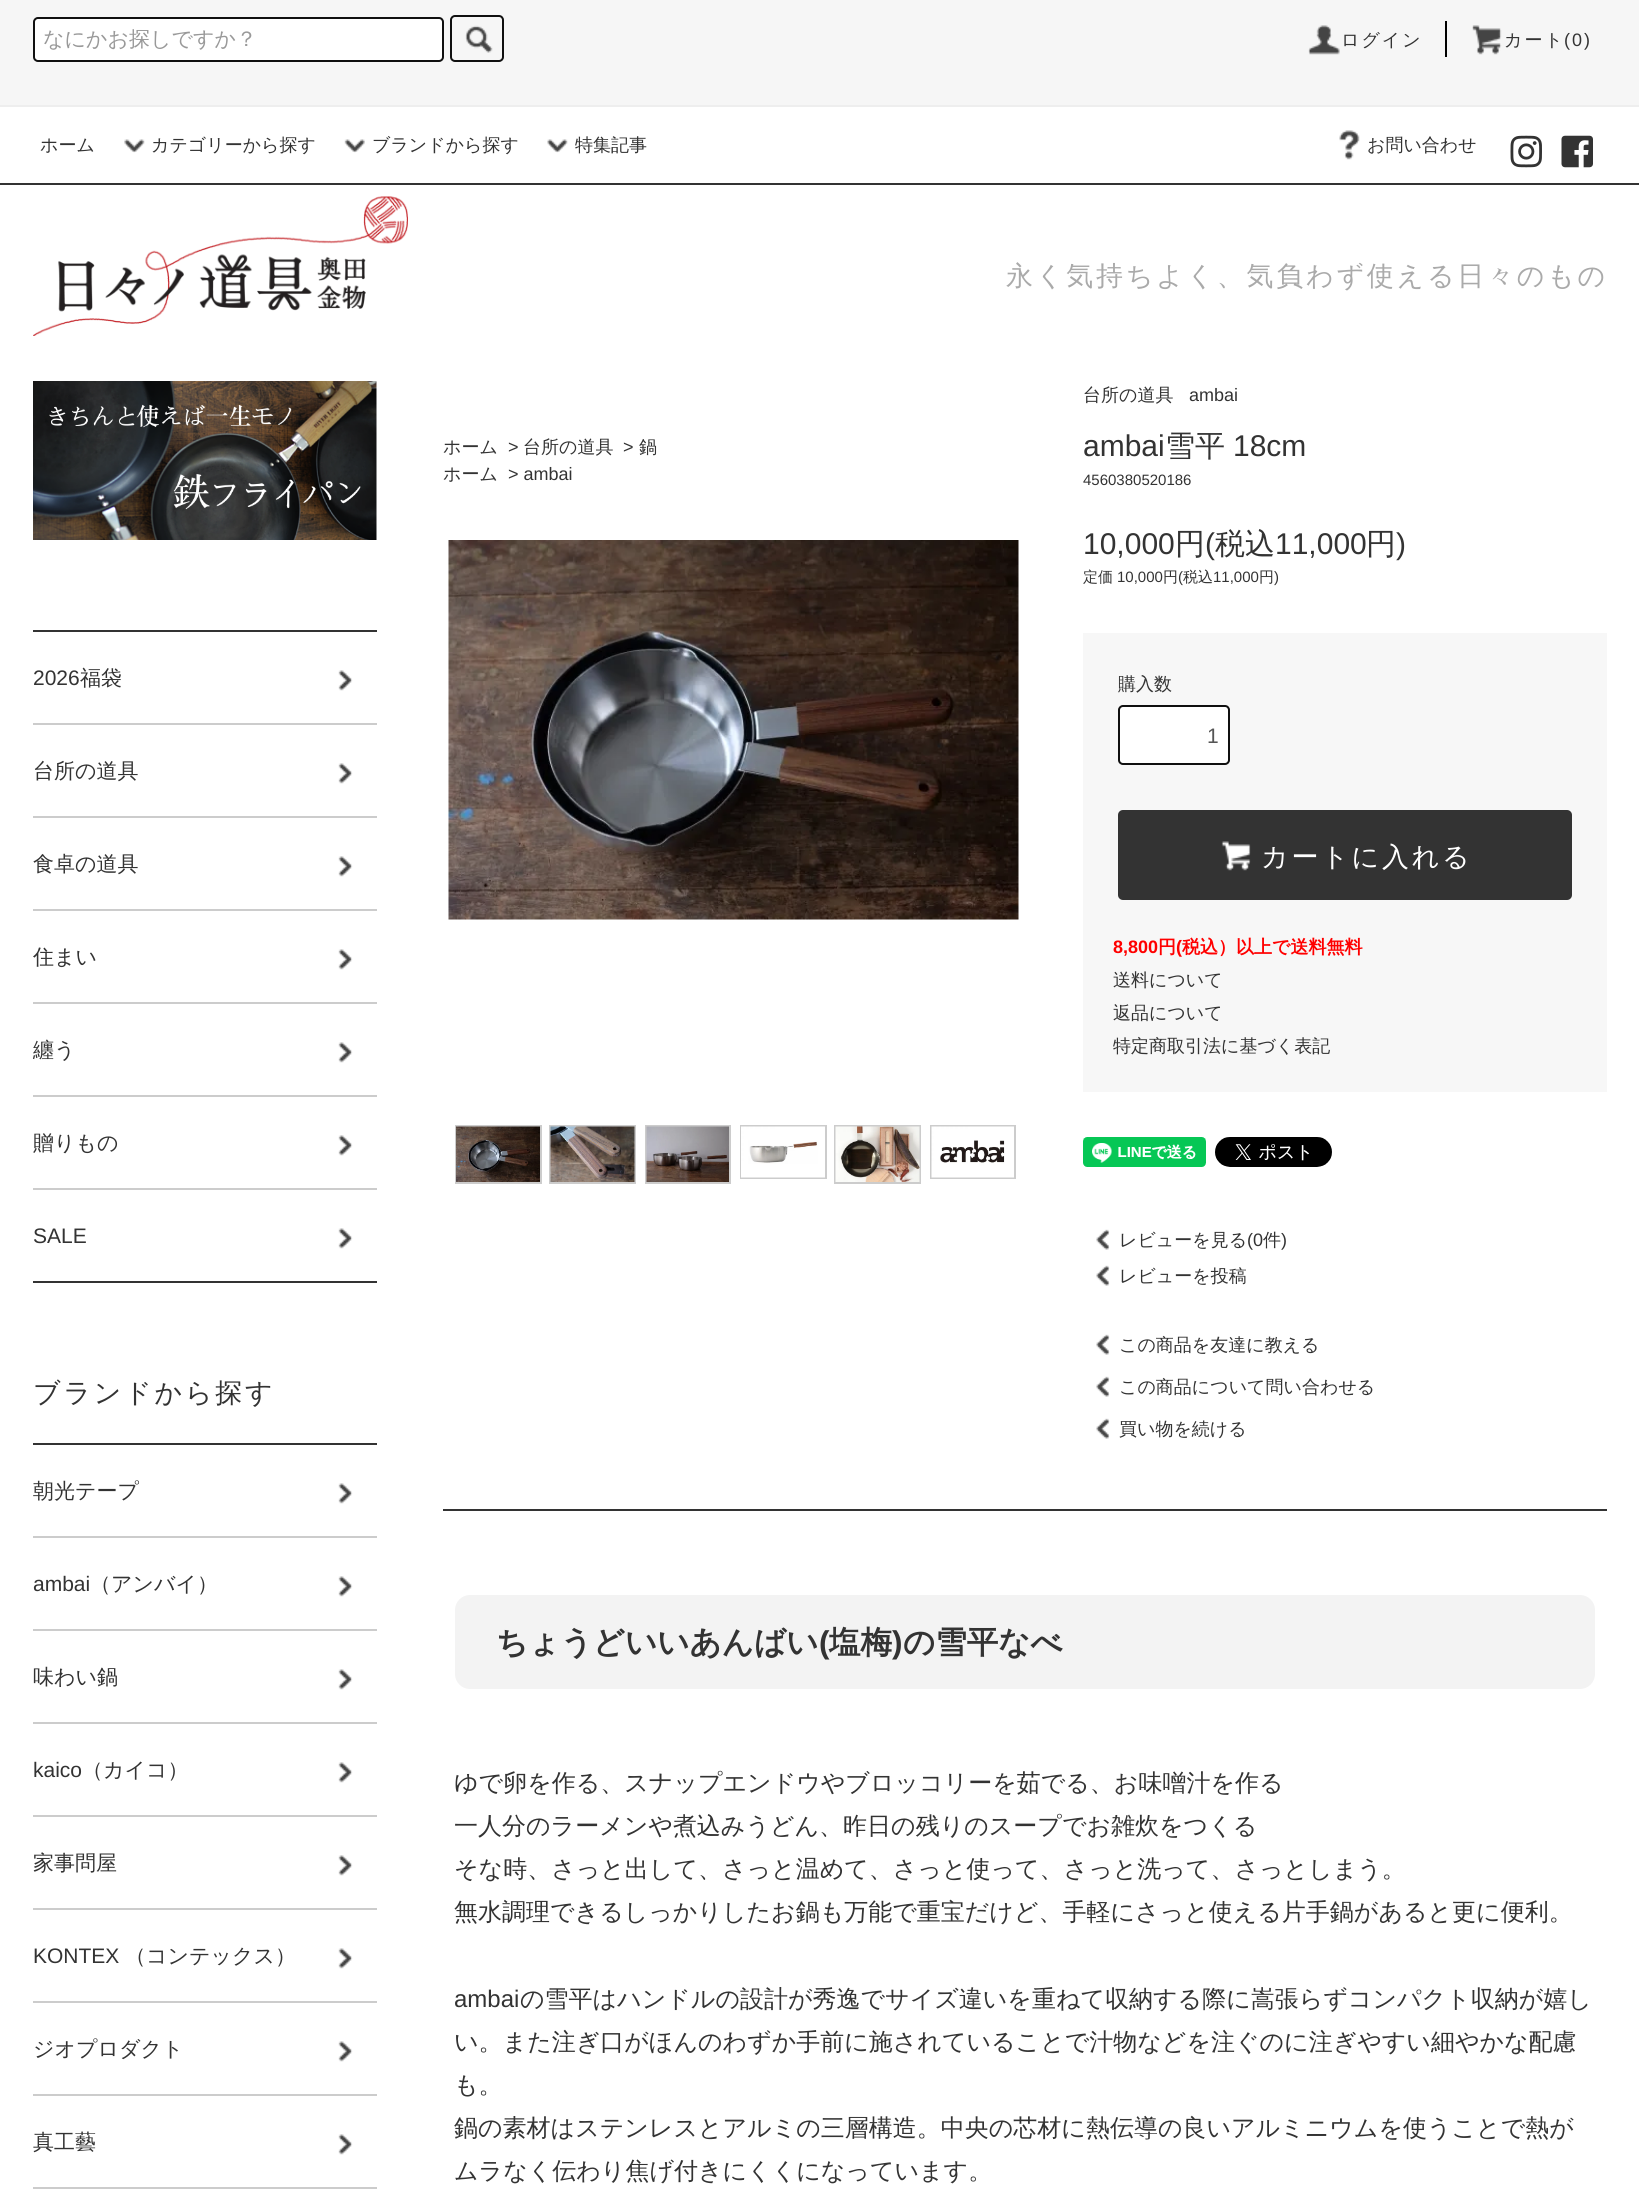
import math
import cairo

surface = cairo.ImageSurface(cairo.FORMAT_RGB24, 1639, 2195)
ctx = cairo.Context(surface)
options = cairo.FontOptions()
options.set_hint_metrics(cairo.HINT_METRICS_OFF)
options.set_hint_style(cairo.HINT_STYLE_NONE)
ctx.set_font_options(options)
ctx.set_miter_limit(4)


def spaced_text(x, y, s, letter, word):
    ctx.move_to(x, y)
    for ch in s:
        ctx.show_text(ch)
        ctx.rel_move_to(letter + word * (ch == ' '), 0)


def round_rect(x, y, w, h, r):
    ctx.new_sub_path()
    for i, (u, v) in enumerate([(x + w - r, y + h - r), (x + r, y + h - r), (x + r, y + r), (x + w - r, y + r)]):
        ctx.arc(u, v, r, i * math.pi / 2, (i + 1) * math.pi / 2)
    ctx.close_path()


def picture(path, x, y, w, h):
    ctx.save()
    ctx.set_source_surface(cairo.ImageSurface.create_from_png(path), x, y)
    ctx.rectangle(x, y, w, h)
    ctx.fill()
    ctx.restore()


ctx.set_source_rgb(1, 1, 1)
ctx.paint()
ctx.set_source_rgb(0.961, 0.961, 0.961)
ctx.rectangle(0, 0, 1639, 105)
ctx.fill()
ctx.set_source_rgb(0.933, 0.933, 0.933)
ctx.rectangle(0, 105, 1639, 2)
ctx.fill()
ctx.set_source_rgb(1, 1, 1)
round_rect(34, 18, 409, 43, 4)
ctx.fill_preserve()
ctx.set_source_rgb(0.063, 0.063, 0.063)
ctx.stroke()
ctx.select_font_face("WenQuanYi Zen Hei Medium")
ctx.set_font_size(21)
ctx.set_source_rgb(0.6, 0.6, 0.6)
ctx.move_to(43, 46)
ctx.show_text("なにかお探しですか？")
round_rect(451, 16, 52, 45, 4)
ctx.set_source_rgb(0.063, 0.063, 0.063)
ctx.stroke()
picture("img1.png", 465, 25, 28, 28)
picture("img2.png", 1308, 25, 32, 30)
ctx.set_font_size(18)
ctx.set_source_rgb(0.2, 0.2, 0.2)
spaced_text(1341, 46, "ログイン", 2, 0)
ctx.set_source_rgb(0, 0, 0)
ctx.rectangle(1445, 21, 2, 36)
ctx.fill()
picture("img3.png", 1472, 25, 30, 30)
ctx.set_source_rgb(0.2, 0.2, 0.2)
spaced_text(1504, 46, "カート", 2, 0)
ctx.select_font_face("Liberation Sans")
spaced_text(1564, 46, "(0)", 2, 0)
ctx.rectangle(0, 183, 1639, 2)
ctx.fill()
ctx.select_font_face("WenQuanYi Zen Hei Medium")
ctx.move_to(40, 151)
ctx.show_text("ホーム")
picture("img4.png", 124, 139, 21, 14)
ctx.move_to(151, 151)
ctx.show_text("カテゴリーから探す")
picture("img5.png", 344, 139, 21, 14)
ctx.move_to(372, 151)
ctx.show_text("ブランドから探す")
picture("img6.png", 547, 139, 21, 14)
ctx.move_to(575, 151)
ctx.show_text("特集記事")
picture("img7.png", 1339, 130, 21, 30)
ctx.move_to(1367, 151)
ctx.show_text("お問い合わせ")
picture("img8.png", 1510, 135, 32, 33)
picture("img9.png", 1561, 135, 32, 33)
picture("img10.png", 33, 196, 375, 140)
ctx.set_font_size(27)
ctx.set_source_rgb(0.667, 0.667, 0.667)
spaced_text(1006, 285, "永く気持ちよく、気負わず使える日々のもの", 2.75, 0)
picture("img11.png", 33, 381, 344, 159)
ctx.set_source_rgb(0.2, 0.2, 0.2)
ctx.rectangle(33, 630, 344, 2)
ctx.fill()
ctx.rectangle(33, 1281, 344, 2)
ctx.fill()
ctx.select_font_face("Liberation Sans")
ctx.set_font_size(21)
ctx.move_to(33, 685)
ctx.show_text("2026")
ctx.select_font_face("WenQuanYi Zen Hei Medium")
ctx.move_to(80, 685)
ctx.show_text("福袋")
picture("img12.png", 338, 670, 15, 21)
ctx.set_source_rgb(0.8, 0.8, 0.8)
ctx.rectangle(33, 723, 344, 2)
ctx.fill()
ctx.set_source_rgb(0.2, 0.2, 0.2)
ctx.move_to(33, 778)
ctx.show_text("台所の道具")
picture("img12.png", 338, 763, 15, 21)
ctx.set_source_rgb(0.8, 0.8, 0.8)
ctx.rectangle(33, 816, 344, 2)
ctx.fill()
ctx.set_source_rgb(0.2, 0.2, 0.2)
ctx.move_to(33, 871)
ctx.show_text("食卓の道具")
picture("img12.png", 338, 856, 15, 21)
ctx.set_source_rgb(0.8, 0.8, 0.8)
ctx.rectangle(33, 909, 344, 2)
ctx.fill()
ctx.set_source_rgb(0.2, 0.2, 0.2)
ctx.move_to(33, 964)
ctx.show_text("住まい")
picture("img12.png", 338, 949, 15, 21)
ctx.set_source_rgb(0.8, 0.8, 0.8)
ctx.rectangle(33, 1002, 344, 2)
ctx.fill()
ctx.set_source_rgb(0.2, 0.2, 0.2)
ctx.move_to(33, 1057)
ctx.show_text("纏う")
picture("img12.png", 338, 1042, 15, 21)
ctx.set_source_rgb(0.8, 0.8, 0.8)
ctx.rectangle(33, 1095, 344, 2)
ctx.fill()
ctx.set_source_rgb(0.2, 0.2, 0.2)
ctx.move_to(33, 1150)
ctx.show_text("贈りもの")
picture("img12.png", 338, 1135, 15, 21)
ctx.set_source_rgb(0.8, 0.8, 0.8)
ctx.rectangle(33, 1188, 344, 2)
ctx.fill()
ctx.select_font_face("Liberation Sans")
ctx.set_source_rgb(0.2, 0.2, 0.2)
ctx.move_to(33, 1243)
ctx.show_text("SALE")
picture("img12.png", 338, 1228, 15, 21)
ctx.rectangle(33, 1443, 344, 2)
ctx.fill()
ctx.select_font_face("WenQuanYi Zen Hei Medium")
ctx.set_font_size(27)
spaced_text(33, 1402, "ブランドから探す", 2.75, 0)
ctx.set_font_size(21)
ctx.move_to(33, 1498)
ctx.show_text("朝光テープ")
picture("img12.png", 338, 1483, 15, 21)
ctx.set_source_rgb(0.8, 0.8, 0.8)
ctx.rectangle(33, 1536, 344, 2)
ctx.fill()
ctx.select_font_face("Liberation Sans")
ctx.set_source_rgb(0.2, 0.2, 0.2)
ctx.move_to(33, 1591)
ctx.show_text("ambai")
ctx.select_font_face("WenQuanYi Zen Hei Medium")
ctx.move_to(90, 1591)
ctx.show_text("（アンバイ）")
picture("img12.png", 338, 1576, 15, 21)
ctx.set_source_rgb(0.8, 0.8, 0.8)
ctx.rectangle(33, 1629, 344, 2)
ctx.fill()
ctx.set_source_rgb(0.2, 0.2, 0.2)
ctx.move_to(33, 1684)
ctx.show_text("味わい鍋")
picture("img12.png", 338, 1669, 15, 21)
ctx.set_source_rgb(0.8, 0.8, 0.8)
ctx.rectangle(33, 1722, 344, 2)
ctx.fill()
ctx.select_font_face("Liberation Sans")
ctx.set_source_rgb(0.2, 0.2, 0.2)
ctx.move_to(33, 1777)
ctx.show_text("kaico")
ctx.select_font_face("WenQuanYi Zen Hei Medium")
ctx.move_to(82, 1777)
ctx.show_text("（カイコ）")
picture("img12.png", 338, 1762, 15, 21)
ctx.set_source_rgb(0.8, 0.8, 0.8)
ctx.rectangle(33, 1815, 344, 2)
ctx.fill()
ctx.set_source_rgb(0.2, 0.2, 0.2)
ctx.move_to(33, 1870)
ctx.show_text("家事問屋")
picture("img12.png", 338, 1855, 15, 21)
ctx.set_source_rgb(0.8, 0.8, 0.8)
ctx.rectangle(33, 1908, 344, 2)
ctx.fill()
ctx.select_font_face("Liberation Sans")
ctx.set_source_rgb(0.2, 0.2, 0.2)
ctx.move_to(33, 1963)
ctx.show_text("KONTEX")
ctx.select_font_face("WenQuanYi Zen Hei Medium")
ctx.move_to(125, 1963)
ctx.show_text("（コンテックス）")
picture("img12.png", 338, 1948, 15, 21)
ctx.set_source_rgb(0.8, 0.8, 0.8)
ctx.rectangle(33, 2001, 344, 2)
ctx.fill()
ctx.set_source_rgb(0.2, 0.2, 0.2)
ctx.move_to(33, 2056)
ctx.show_text("ジオプロダクト")
picture("img12.png", 338, 2041, 15, 21)
ctx.set_source_rgb(0.8, 0.8, 0.8)
ctx.rectangle(33, 2094, 344, 2)
ctx.fill()
ctx.set_source_rgb(0.2, 0.2, 0.2)
ctx.move_to(33, 2149)
ctx.show_text("真工藝")
picture("img12.png", 338, 2134, 15, 21)
ctx.set_source_rgb(0.8, 0.8, 0.8)
ctx.rectangle(33, 2187, 344, 2)
ctx.fill()
ctx.set_source_rgb(0.2, 0.2, 0.2)
ctx.rectangle(443, 1509, 1164, 2)
ctx.fill()
ctx.set_font_size(18)
ctx.move_to(443, 453)
ctx.show_text("ホーム")
ctx.select_font_face("Liberation Sans")
ctx.move_to(508, 453)
ctx.show_text(">")
ctx.select_font_face("WenQuanYi Zen Hei Medium")
ctx.move_to(523, 453)
ctx.show_text("台所の道具")
ctx.select_font_face("Liberation Sans")
ctx.move_to(623, 453)
ctx.show_text(">")
ctx.select_font_face("WenQuanYi Zen Hei Medium")
ctx.move_to(639, 453)
ctx.show_text("鍋")
ctx.move_to(443, 480)
ctx.show_text("ホーム")
ctx.select_font_face("Liberation Sans")
ctx.move_to(508, 480)
ctx.show_text("> ambai")
picture("img13.png", 448, 540, 571, 380)
ctx.rectangle(456, 1126, 85, 57)
ctx.set_source_rgb(0.8, 0.8, 0.8)
ctx.stroke()
picture("img14.png", 456, 1126, 84, 56)
ctx.rectangle(550, 1126, 85, 57)
ctx.stroke()
picture("img15.png", 550, 1126, 85, 56)
ctx.rectangle(646, 1126, 84, 57)
ctx.stroke()
picture("img16.png", 646, 1126, 83, 56)
ctx.rectangle(741, 1126, 85, 52)
ctx.stroke()
picture("img17.png", 741, 1126, 84, 52)
ctx.rectangle(835, 1126, 85, 57)
ctx.stroke()
picture("img18.png", 835, 1126, 85, 56)
ctx.rectangle(931, 1126, 84, 52)
ctx.stroke()
picture("img19.png", 931, 1126, 83, 52)
ctx.select_font_face("WenQuanYi Zen Hei Medium")
ctx.set_source_rgb(0.2, 0.2, 0.2)
ctx.move_to(1083, 401)
ctx.show_text("台所の道具")
ctx.select_font_face("Liberation Sans")
ctx.move_to(1189, 401)
ctx.show_text("ambai")
ctx.set_font_size(30)
ctx.move_to(1083, 456)
ctx.show_text("ambai")
ctx.select_font_face("WenQuanYi Zen Hei Medium")
ctx.move_to(1165, 456)
ctx.show_text("雪平")
ctx.select_font_face("Liberation Sans")
ctx.move_to(1233, 456)
ctx.show_text("18cm")
ctx.set_font_size(15)
ctx.move_to(1083, 485)
ctx.show_text("4560380520186")
ctx.set_font_size(30)
ctx.move_to(1083, 554)
ctx.show_text("10,000")
ctx.select_font_face("WenQuanYi Zen Hei Medium")
ctx.move_to(1175, 554)
ctx.show_text("円")
ctx.select_font_face("Liberation Sans")
ctx.move_to(1205, 554)
ctx.show_text("(")
ctx.select_font_face("WenQuanYi Zen Hei Medium")
ctx.move_to(1215, 554)
ctx.show_text("税込")
ctx.select_font_face("Liberation Sans")
ctx.move_to(1275, 554)
ctx.show_text("11,000")
ctx.select_font_face("WenQuanYi Zen Hei Medium")
ctx.move_to(1366, 554)
ctx.show_text("円")
ctx.select_font_face("Liberation Sans")
ctx.move_to(1396, 554)
ctx.show_text(")")
ctx.select_font_face("WenQuanYi Zen Hei Medium")
ctx.set_font_size(15)
ctx.move_to(1083, 582)
ctx.show_text("定価")
ctx.select_font_face("Liberation Sans")
ctx.move_to(1117, 582)
ctx.show_text("10,000")
ctx.select_font_face("WenQuanYi Zen Hei Medium")
ctx.move_to(1163, 582)
ctx.show_text("円")
ctx.select_font_face("Liberation Sans")
ctx.move_to(1178, 582)
ctx.show_text("(")
ctx.select_font_face("WenQuanYi Zen Hei Medium")
ctx.move_to(1183, 582)
ctx.show_text("税込")
ctx.select_font_face("Liberation Sans")
ctx.move_to(1213, 582)
ctx.show_text("11,000")
ctx.select_font_face("WenQuanYi Zen Hei Medium")
ctx.move_to(1259, 582)
ctx.show_text("円")
ctx.select_font_face("Liberation Sans")
ctx.move_to(1274, 582)
ctx.show_text(")")
ctx.set_source_rgb(0.965, 0.965, 0.965)
ctx.rectangle(1083, 633, 524, 459)
ctx.fill()
ctx.select_font_face("WenQuanYi Zen Hei Medium")
ctx.set_font_size(18)
ctx.set_source_rgb(0.2, 0.2, 0.2)
ctx.move_to(1118, 690)
ctx.show_text("購入数")
ctx.set_source_rgb(1, 1, 1)
round_rect(1119, 706, 110, 58, 4)
ctx.fill_preserve()
ctx.set_source_rgb(0.063, 0.063, 0.063)
ctx.stroke()
ctx.select_font_face("Liberation Sans")
ctx.set_font_size(21)
ctx.set_source_rgb(0.333, 0.333, 0.333)
ctx.move_to(1207, 743)
ctx.show_text("1")
ctx.set_source_rgb(0.2, 0.2, 0.2)
round_rect(1118, 810, 454, 90, 5)
ctx.fill()
picture("img20.png", 1221, 841, 30, 30)
ctx.select_font_face("WenQuanYi Zen Hei Medium")
ctx.set_font_size(27)
ctx.set_source_rgb(1, 1, 1)
spaced_text(1261, 866, "カートに入れる", 2.75, 0)
ctx.select_font_face("Liberation Sans", cairo.FONT_SLANT_NORMAL, cairo.FONT_WEIGHT_BOLD)
ctx.set_font_size(18)
ctx.set_source_rgb(1, 0, 0)
ctx.move_to(1113, 953)
ctx.show_text("8,800")
ctx.select_font_face("WenQuanYi Zen Hei", cairo.FONT_SLANT_NORMAL, cairo.FONT_WEIGHT_BOLD)
ctx.move_to(1158, 953)
ctx.show_text("円")
ctx.select_font_face("Liberation Sans", cairo.FONT_SLANT_NORMAL, cairo.FONT_WEIGHT_BOLD)
ctx.move_to(1176, 953)
ctx.show_text("(")
ctx.select_font_face("WenQuanYi Zen Hei", cairo.FONT_SLANT_NORMAL, cairo.FONT_WEIGHT_BOLD)
ctx.move_to(1182, 953)
ctx.show_text("税込）以上で送料無料")
ctx.select_font_face("WenQuanYi Zen Hei Medium")
ctx.set_source_rgb(0.2, 0.2, 0.2)
ctx.move_to(1113, 986)
ctx.show_text("送料について")
ctx.move_to(1113, 1019)
ctx.show_text("返品について")
ctx.move_to(1113, 1052)
ctx.show_text("特定商取引法に基づく表記")
picture("img21.png", 1083, 1137, 123, 30)
picture("img22.png", 1215, 1137, 117, 30)
picture("img23.png", 1096, 1229, 14, 21)
ctx.move_to(1119, 1246)
ctx.show_text("レビューを見る")
ctx.select_font_face("Liberation Sans")
ctx.move_to(1247, 1246)
ctx.show_text("(0")
ctx.select_font_face("WenQuanYi Zen Hei Medium")
ctx.move_to(1263, 1246)
ctx.show_text("件")
ctx.select_font_face("Liberation Sans")
ctx.move_to(1281, 1246)
ctx.show_text(")")
picture("img23.png", 1096, 1265, 14, 21)
ctx.select_font_face("WenQuanYi Zen Hei Medium")
ctx.move_to(1119, 1282)
ctx.show_text("レビューを投稿")
picture("img23.png", 1096, 1334, 14, 21)
ctx.move_to(1119, 1351)
ctx.show_text("この商品を友達に教える")
picture("img23.png", 1096, 1376, 14, 21)
ctx.move_to(1119, 1393)
ctx.show_text("この商品について問い合わせる")
picture("img23.png", 1096, 1418, 14, 21)
ctx.move_to(1119, 1435)
ctx.show_text("買い物を続ける")
ctx.set_source_rgb(0.953, 0.953, 0.953)
round_rect(455, 1595, 1140, 94, 15)
ctx.fill()
ctx.select_font_face("WenQuanYi Zen Hei", cairo.FONT_SLANT_NORMAL, cairo.FONT_WEIGHT_BOLD)
ctx.set_font_size(31.5)
ctx.set_source_rgb(0.2, 0.2, 0.2)
ctx.move_to(496, 1653)
ctx.show_text("ちょうどいいあんばい")
ctx.select_font_face("Liberation Sans", cairo.FONT_SLANT_NORMAL, cairo.FONT_WEIGHT_BOLD)
ctx.move_to(819, 1653)
ctx.show_text("(")
ctx.select_font_face("WenQuanYi Zen Hei", cairo.FONT_SLANT_NORMAL, cairo.FONT_WEIGHT_BOLD)
ctx.move_to(829, 1653)
ctx.show_text("塩梅")
ctx.select_font_face("Liberation Sans", cairo.FONT_SLANT_NORMAL, cairo.FONT_WEIGHT_BOLD)
ctx.move_to(892, 1653)
ctx.show_text(")")
ctx.select_font_face("WenQuanYi Zen Hei", cairo.FONT_SLANT_NORMAL, cairo.FONT_WEIGHT_BOLD)
ctx.move_to(903, 1653)
ctx.show_text("の雪平なべ")
ctx.select_font_face("WenQuanYi Zen Hei Medium")
ctx.set_font_size(24)
ctx.move_to(454, 1791)
ctx.show_text("ゆで卵を作る、スナップエンドウやブロッコリーを茹でる、お味噌汁を作る")
ctx.move_to(454, 1834)
ctx.show_text("一人分のラーメンや煮込みうどん、昨日の残りのスープでお雑炊をつくる")
ctx.move_to(454, 1877)
ctx.show_text("そな時、さっと出して、さっと温めて、さっと使って、さっと洗って、さっとしまう。")
ctx.move_to(454, 1920)
ctx.show_text("無水調理できるしっかりしたお鍋も万能で重宝だけど、手軽にさっと使える片手鍋があると更に便利。")
ctx.select_font_face("Liberation Sans")
ctx.move_to(454, 2007)
ctx.show_text("ambai")
ctx.select_font_face("WenQuanYi Zen Hei Medium")
ctx.move_to(520, 2007)
ctx.show_text("の雪平はハンドルの設計が秀逸でサイズ違いを重ねて収納する際に嵩張らずコンパクト収納が嬉し")
ctx.move_to(454, 2050)
ctx.show_text("い。また注ぎ口がほんのわずか手前に施されていることで汁物などを注ぐのに注ぎやすい細やかな配慮")
ctx.move_to(454, 2093)
ctx.show_text("も。")
ctx.move_to(454, 2136)
ctx.show_text("鍋の素材はステンレスとアルミの三層構造。中央の芯材に熱伝導の良いアルミニウムを使うことで熱が")
ctx.move_to(454, 2179)
ctx.show_text("ムラなく伝わり焦げ付きにくくになっています。")
surface.write_to_png("page.png")
